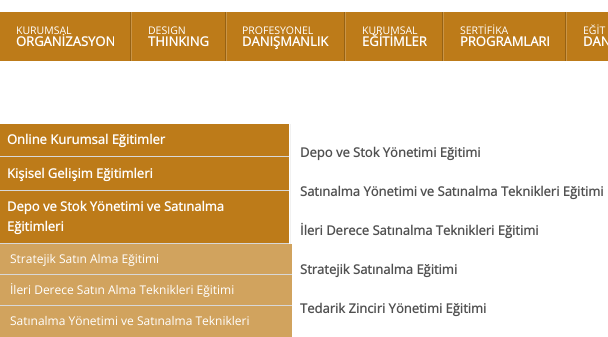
import math
import cairo

surface = cairo.ImageSurface(cairo.FORMAT_RGB24, 608, 337)
ctx = cairo.Context(surface)
options = cairo.FontOptions()
options.set_hint_metrics(cairo.HINT_METRICS_OFF)
options.set_hint_style(cairo.HINT_STYLE_NONE)
ctx.set_font_options(options)
ctx.set_miter_limit(4)


ctx.set_source_rgb(1, 1, 1)
ctx.paint()
ctx.set_source_rgb(0.741, 0.482, 0.098)
ctx.rectangle(0, 12, 608, 49)
ctx.fill()
ctx.set_source_rgb(0.592, 0.384, 0.078)
ctx.rectangle(130, 12, 1, 49)
ctx.fill()
ctx.select_font_face("Open Sans")
ctx.set_font_size(10.5)
ctx.set_source_rgb(1, 1, 1)
ctx.move_to(16, 34)
ctx.show_text("KURUMSAL")
ctx.select_font_face("Open Sans", cairo.FONT_SLANT_NORMAL, cairo.FONT_WEIGHT_BOLD)
ctx.set_font_size(13)
ctx.move_to(16, 46)
ctx.show_text("ORGANİZASYON")
ctx.set_source_rgb(0.592, 0.384, 0.078)
ctx.rectangle(225, 12, 1, 49)
ctx.fill()
ctx.set_source_rgb(0.792, 0.584, 0.278)
ctx.rectangle(131, 12, 1, 49)
ctx.fill()
ctx.select_font_face("Open Sans")
ctx.set_font_size(10.5)
ctx.set_source_rgb(1, 1, 1)
ctx.move_to(148, 34)
ctx.show_text("DESIGN")
ctx.select_font_face("Open Sans", cairo.FONT_SLANT_NORMAL, cairo.FONT_WEIGHT_BOLD)
ctx.set_font_size(13)
ctx.move_to(148, 46)
ctx.show_text("THINKING")
ctx.set_source_rgb(0.592, 0.384, 0.078)
ctx.rectangle(344, 12, 1, 49)
ctx.fill()
ctx.set_source_rgb(0.792, 0.584, 0.278)
ctx.rectangle(226, 12, 1, 49)
ctx.fill()
ctx.select_font_face("Open Sans")
ctx.set_font_size(10.5)
ctx.set_source_rgb(1, 1, 1)
ctx.move_to(242, 34)
ctx.show_text("PROFESYONEL")
ctx.select_font_face("Open Sans", cairo.FONT_SLANT_NORMAL, cairo.FONT_WEIGHT_BOLD)
ctx.set_font_size(13)
ctx.move_to(242, 46)
ctx.show_text("DANIŞMANLIK")
ctx.set_source_rgb(0.592, 0.384, 0.078)
ctx.rectangle(442, 12, 1, 49)
ctx.fill()
ctx.set_source_rgb(0.792, 0.584, 0.278)
ctx.rectangle(345, 12, 1, 49)
ctx.fill()
ctx.select_font_face("Open Sans")
ctx.set_font_size(10.5)
ctx.set_source_rgb(1, 1, 1)
ctx.move_to(362, 34)
ctx.show_text("KURUMSAL")
ctx.select_font_face("Open Sans", cairo.FONT_SLANT_NORMAL, cairo.FONT_WEIGHT_BOLD)
ctx.set_font_size(13)
ctx.move_to(362, 46)
ctx.show_text("EĞİTİMLER")
ctx.set_source_rgb(0.592, 0.384, 0.078)
ctx.rectangle(565, 12, 1, 49)
ctx.fill()
ctx.set_source_rgb(0.792, 0.584, 0.278)
ctx.rectangle(443, 12, 1, 49)
ctx.fill()
ctx.select_font_face("Open Sans")
ctx.set_font_size(10.5)
ctx.set_source_rgb(1, 1, 1)
ctx.move_to(460, 34)
ctx.show_text("SERTİFİKA")
ctx.select_font_face("Open Sans", cairo.FONT_SLANT_NORMAL, cairo.FONT_WEIGHT_BOLD)
ctx.set_font_size(13)
ctx.move_to(460, 46)
ctx.show_text("PROGRAMLARI")
ctx.set_source_rgb(0.792, 0.584, 0.278)
ctx.rectangle(566, 12, 1, 49)
ctx.fill()
ctx.select_font_face("Open Sans")
ctx.set_font_size(10.5)
ctx.set_source_rgb(1, 1, 1)
ctx.move_to(583, 34)
ctx.show_text("EĞİT")
ctx.select_font_face("Open Sans", cairo.FONT_SLANT_NORMAL, cairo.FONT_WEIGHT_BOLD)
ctx.set_font_size(13)
ctx.move_to(583, 46)
ctx.show_text("DAN")
ctx.set_source_rgb(0.945, 0.945, 0.945)
ctx.rectangle(290, 124, 1, 120)
ctx.fill()
ctx.set_source_rgb(0.741, 0.482, 0.098)
ctx.rectangle(0, 124, 289, 32)
ctx.fill()
ctx.set_source_rgb(0.847, 0.847, 0.847)
ctx.rectangle(0, 156, 289, 1)
ctx.fill()
ctx.set_source_rgb(1, 1, 1)
ctx.move_to(7, 144)
ctx.show_text("Online Kurumsal Eğitimler")
ctx.set_source_rgb(0.741, 0.482, 0.098)
ctx.rectangle(0, 157, 289, 33)
ctx.fill()
ctx.set_source_rgb(0.847, 0.847, 0.847)
ctx.rectangle(0, 190, 289, 1)
ctx.fill()
ctx.set_source_rgb(1, 1, 1)
ctx.move_to(7, 178)
ctx.show_text("Kişisel Gelişim Eğitimleri")
ctx.set_source_rgb(0.741, 0.482, 0.098)
ctx.rectangle(0, 191, 289, 52)
ctx.fill()
ctx.set_source_rgb(0.847, 0.847, 0.847)
ctx.rectangle(0, 243, 289, 1)
ctx.fill()
ctx.set_source_rgb(1, 1, 1)
ctx.move_to(7, 211)
ctx.show_text("Depo ve Stok Yönetimi ve Satınalma")
ctx.move_to(7, 231)
ctx.show_text("Eğitimleri")
ctx.set_source_rgb(0.82, 0.639, 0.369)
ctx.rectangle(0, 244, 292, 30)
ctx.fill()
ctx.set_source_rgb(0.847, 0.847, 0.847)
ctx.rectangle(0, 274, 292, 1)
ctx.fill()
ctx.select_font_face("Open Sans")
ctx.set_font_size(12)
ctx.set_source_rgb(1, 1, 1)
ctx.move_to(10, 263)
ctx.show_text("Stratejik Satın Alma Eğitimi")
ctx.set_source_rgb(0.82, 0.639, 0.369)
ctx.rectangle(0, 275, 292, 30)
ctx.fill()
ctx.set_source_rgb(0.847, 0.847, 0.847)
ctx.rectangle(0, 305, 292, 1)
ctx.fill()
ctx.set_source_rgb(1, 1, 1)
ctx.move_to(10, 294)
ctx.show_text("İleri Derece Satın Alma Teknikleri Eğitimi")
ctx.set_source_rgb(0.82, 0.639, 0.369)
ctx.rectangle(0, 306, 292, 31)
ctx.fill()
ctx.set_source_rgb(1, 1, 1)
ctx.move_to(10, 325)
ctx.show_text("Satınalma Yönetimi ve Satınalma Teknikleri")
ctx.select_font_face("Open Sans", cairo.FONT_SLANT_NORMAL, cairo.FONT_WEIGHT_BOLD)
ctx.set_font_size(13)
ctx.set_source_rgb(0.314, 0.314, 0.314)
ctx.move_to(300, 157)
ctx.show_text("Depo ve Stok Yönetimi Eğitimi")
ctx.move_to(300, 196)
ctx.show_text("Satınalma Yönetimi ve Satınalma Teknikleri Eğitimi")
ctx.move_to(300, 235)
ctx.show_text("İleri Derece Satınalma Teknikleri Eğitimi")
ctx.move_to(300, 274)
ctx.show_text("Stratejik Satınalma Eğitimi")
ctx.move_to(300, 313)
ctx.show_text("Tedarik Zinciri Yönetimi Eğitimi")
surface.write_to_png("page.png")
